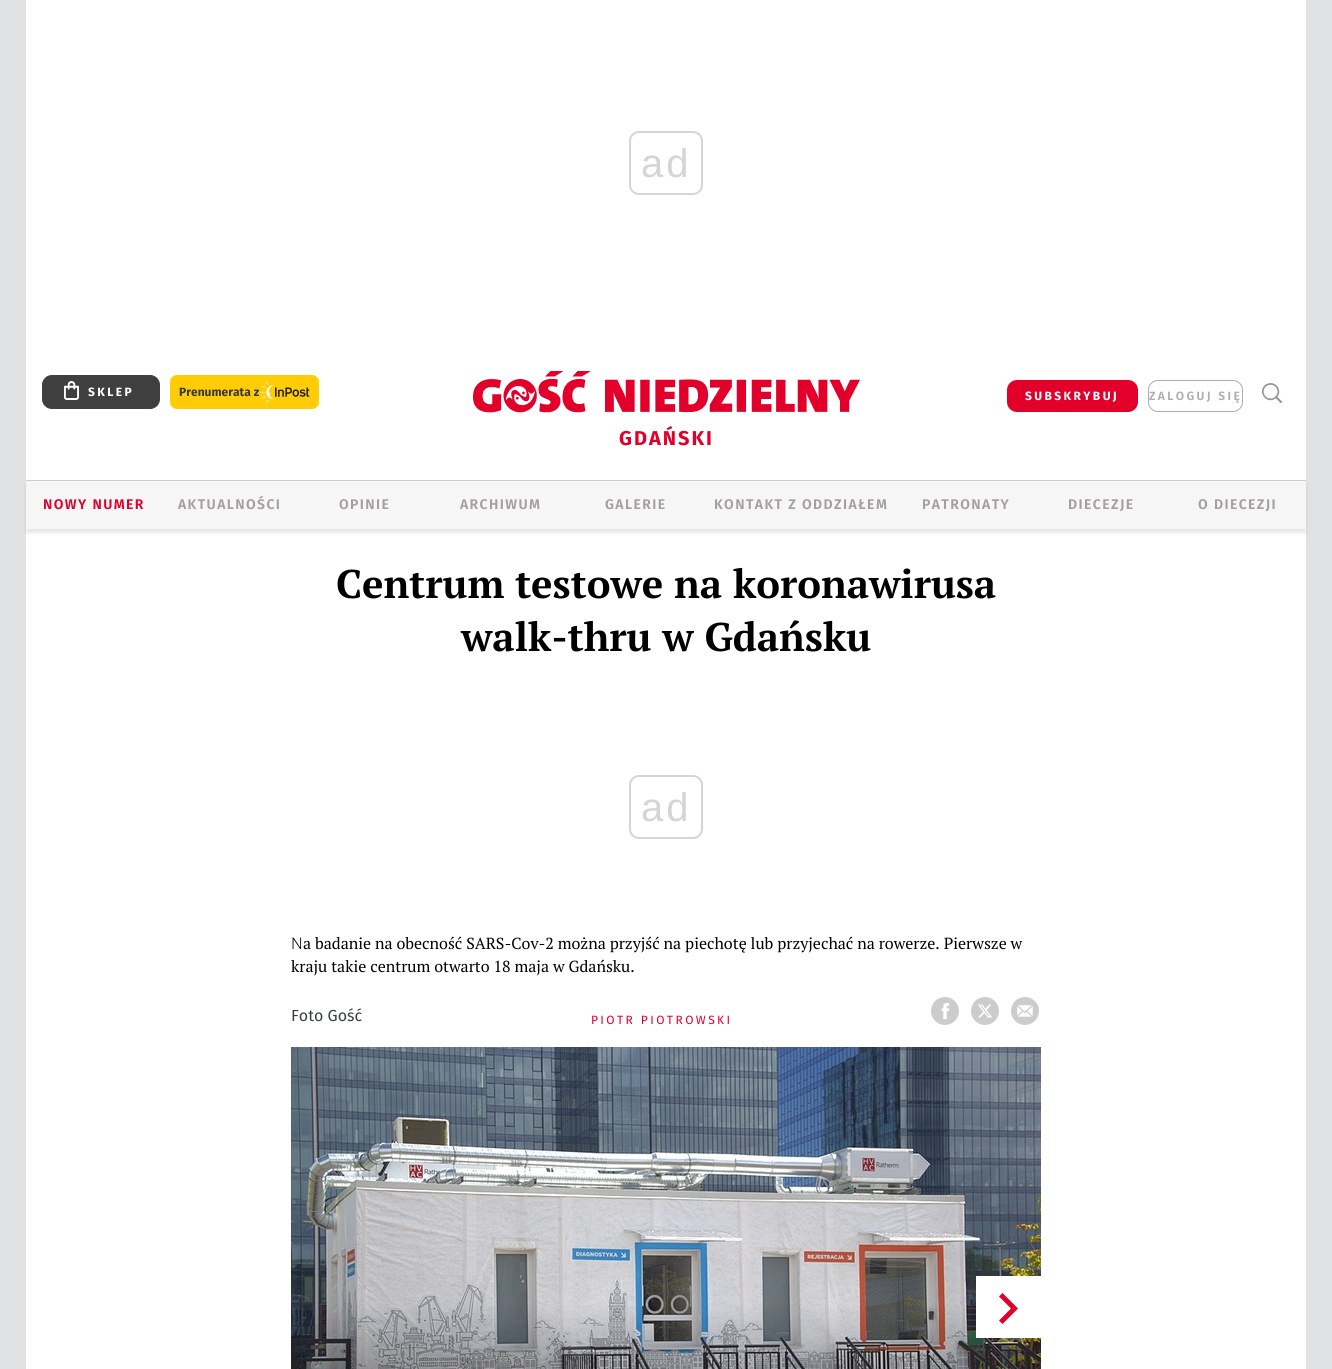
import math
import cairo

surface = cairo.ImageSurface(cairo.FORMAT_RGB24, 1332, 1369)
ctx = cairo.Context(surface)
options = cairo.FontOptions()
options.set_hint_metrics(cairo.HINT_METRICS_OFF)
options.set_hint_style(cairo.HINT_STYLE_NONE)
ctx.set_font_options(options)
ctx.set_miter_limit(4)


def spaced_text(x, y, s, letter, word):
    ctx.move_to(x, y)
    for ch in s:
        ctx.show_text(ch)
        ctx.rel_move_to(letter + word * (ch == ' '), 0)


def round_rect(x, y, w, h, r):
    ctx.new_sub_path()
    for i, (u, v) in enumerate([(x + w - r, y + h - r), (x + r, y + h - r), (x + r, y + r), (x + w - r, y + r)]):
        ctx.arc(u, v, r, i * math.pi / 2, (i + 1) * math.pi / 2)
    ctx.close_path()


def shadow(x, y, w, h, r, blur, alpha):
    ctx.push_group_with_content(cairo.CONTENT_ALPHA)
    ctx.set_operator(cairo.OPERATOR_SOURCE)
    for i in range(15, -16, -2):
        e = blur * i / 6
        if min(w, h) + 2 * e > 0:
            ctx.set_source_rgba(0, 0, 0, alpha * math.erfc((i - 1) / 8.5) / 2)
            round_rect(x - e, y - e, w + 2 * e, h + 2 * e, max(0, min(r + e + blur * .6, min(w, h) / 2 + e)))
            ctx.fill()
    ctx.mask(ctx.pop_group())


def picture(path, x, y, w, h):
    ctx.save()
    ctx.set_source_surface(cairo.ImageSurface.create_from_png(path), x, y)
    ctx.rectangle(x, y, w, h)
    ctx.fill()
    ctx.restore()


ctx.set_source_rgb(0.882, 0.886, 0.894)
ctx.paint()
ctx.set_source_rgb(1, 1, 1)
ctx.rectangle(26, 0, 1280, 355)
ctx.fill()
round_rect(630, 132, 72, 62, 9)
ctx.set_source_rgb(0.835, 0.835, 0.835)
ctx.stroke()
ctx.select_font_face("Liberation Sans")
ctx.set_font_size(40)
spaced_text(641, 177, "ad", 3, 0)
ctx.set_source_rgb(0.961, 0.961, 0.961)
ctx.rectangle(26, 481, 1280, 48)
ctx.fill()
ctx.set_source_rgb(1, 1, 1)
ctx.rectangle(26, 355, 1280, 125)
ctx.fill()
ctx.set_source_rgb(0.247, 0.247, 0.247)
round_rect(42.5, 375.5, 117, 33, 9.5)
ctx.fill_preserve()
ctx.set_line_width(1)
ctx.stroke()
picture("img1.png", 64, 381, 15, 19)
ctx.select_font_face("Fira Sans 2", cairo.FONT_SLANT_NORMAL, cairo.FONT_WEIGHT_BOLD)
ctx.set_font_size(12)
ctx.set_source_rgb(1, 1, 1)
spaced_text(88, 396, "SKLEP", 2.4, 0)
ctx.set_source_rgb(1, 0.8, 0.02)
round_rect(170, 375, 149, 34, 7)
ctx.fill()
ctx.select_font_face("Fira Sans", cairo.FONT_SLANT_NORMAL, cairo.FONT_WEIGHT_BOLD)
ctx.set_source_rgb(0.22, 0.22, 0.22)
ctx.move_to(179, 396)
ctx.show_text("Prenumerata z")
picture("img2.png", 260, 381, 50, 23)
ctx.set_source_rgb(0.886, 0, 0.169)
round_rect(1007, 380, 131, 32, 10)
ctx.fill()
ctx.select_font_face("Fira Sans 2", cairo.FONT_SLANT_NORMAL, cairo.FONT_WEIGHT_BOLD)
ctx.set_source_rgb(1, 1, 1)
spaced_text(1025, 400, "SUBSKRYBUJ", 2.4, 0)
round_rect(1148.5, 380.5, 94, 31, 9.5)
ctx.set_source_rgb(0.678, 0.678, 0.678)
ctx.stroke()
ctx.select_font_face("Fira Sans SemiBold")
spaced_text(1149, 400, "ZALOGUJ SIĘ", 2.4, 0)
picture("img3.png", 1262, 383, 20, 20)
picture("img4.png", 473, 371, 387, 42)
ctx.select_font_face("Fira Sans 2", cairo.FONT_SLANT_NORMAL, cairo.FONT_WEIGHT_BOLD)
ctx.set_font_size(20)
ctx.set_source_rgb(0.886, 0, 0.169)
spaced_text(619, 445, "GDAŃSKI", 2, 0)
ctx.set_source_rgb(1, 1, 1)
ctx.rectangle(26, 529, 1280, 840)
ctx.fill()
ctx.save()
ctx.set_fill_rule(cairo.FILL_RULE_EVEN_ODD)
ctx.new_path()
ctx.move_to(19, 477)
ctx.line_to(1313, 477)
ctx.line_to(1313, 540)
ctx.line_to(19, 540)
ctx.close_path()
ctx.move_to(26, 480)
ctx.line_to(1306, 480)
ctx.line_to(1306, 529)
ctx.line_to(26, 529)
ctx.close_path()
ctx.clip()
ctx.set_source_rgb(0, 0, 0)
shadow(26, 484, 1280, 49, 0, 2, 0.1)
ctx.restore()
ctx.set_source_rgb(0.8, 0.8, 0.8)
ctx.rectangle(26, 480, 1280, 1)
ctx.fill()
ctx.select_font_face("Fira Sans SemiBold")
ctx.set_font_size(14)
ctx.set_source_rgb(0.886, 0, 0.169)
spaced_text(43, 509, "NOWY NUMER", 1.4, 0)
ctx.set_source_rgb(0.651, 0.616, 0.616)
spaced_text(178, 509, "AKTUALNOŚCI", 1.4, 0)
spaced_text(339, 509, "OPINIE", 1.4, 0)
spaced_text(460, 509, "ARCHIWUM", 1.4, 0)
spaced_text(605, 509, "GALERIE", 1.4, 0)
spaced_text(714, 509, "KONTAKT Z ODDZIAŁEM", 1.4, 0)
spaced_text(922, 509, "PATRONATY", 1.4, 0)
spaced_text(1068, 509, "DIECEZJE", 1.4, 0)
spaced_text(1198, 509, "O DIECEZJI", 1.4, 0)
ctx.select_font_face("PT Serif", cairo.FONT_SLANT_NORMAL, cairo.FONT_WEIGHT_BOLD)
ctx.set_font_size(40)
ctx.set_source_rgb(0, 0, 0)
ctx.move_to(336, 598)
ctx.show_text("Centrum testowe na koronawirusa")
ctx.move_to(461, 651)
ctx.show_text("walk-thru w Gdańsku")
round_rect(630, 776, 72, 62, 9)
ctx.set_source_rgb(0.835, 0.835, 0.835)
ctx.set_line_width(2)
ctx.stroke()
ctx.select_font_face("Liberation Sans")
spaced_text(641, 821, "ad", 3, 0)
ctx.select_font_face("Noto Sans Light")
ctx.set_font_size(16)
ctx.set_source_rgb(0, 0, 0)
ctx.move_to(291, 949)
ctx.show_text("N")
ctx.select_font_face("PT Serif")
ctx.move_to(303, 949)
ctx.show_text("a badanie na obecność SARS-Cov-2 można przyjść na piechotę lub przyjechać na rowerze. Pierwsze w")
ctx.move_to(291, 972)
ctx.show_text("kraju takie centrum otwarto 18 maja w Gdańsku.")
ctx.select_font_face("Fira Sans")
ctx.set_source_rgb(0.216, 0.247, 0.255)
ctx.move_to(291, 1021)
ctx.show_text("Foto Gość")
ctx.set_font_size(12)
ctx.set_source_rgb(0.886, 0, 0.169)
spaced_text(591, 1024, "PIOTR PIOTROWSKI", 2.4, 0)
ctx.set_source_rgb(0.8, 0.8, 0.8)
ctx.new_path()
ctx.arc(945, 1011, 14, 0, 2 * math.pi)
ctx.fill()
picture("img5.png", 941, 1003, 9, 17)
ctx.arc(985, 1011, 14, 0, 2 * math.pi)
ctx.fill()
picture("img6.png", 978, 1004, 14, 14)
ctx.arc(1025, 1011, 14, 0, 2 * math.pi)
ctx.fill()
picture("img7.png", 1017, 1005, 16, 12)
picture("img8.png", 291, 1047, 750, 322)
ctx.set_source_rgb(1, 1, 1)
ctx.rectangle(976, 1276, 65, 62)
ctx.fill()
ctx.set_source_rgb(0.886, 0, 0.169)
ctx.new_path()
ctx.move_to(999, 1296.5)
ctx.line_to(1002.5, 1293)
ctx.line_to(1018, 1308.5)
ctx.line_to(1002.5, 1324)
ctx.line_to(999, 1320.5)
ctx.line_to(1011, 1308.5)
ctx.close_path()
ctx.fill()
surface.write_to_png("page.png")
